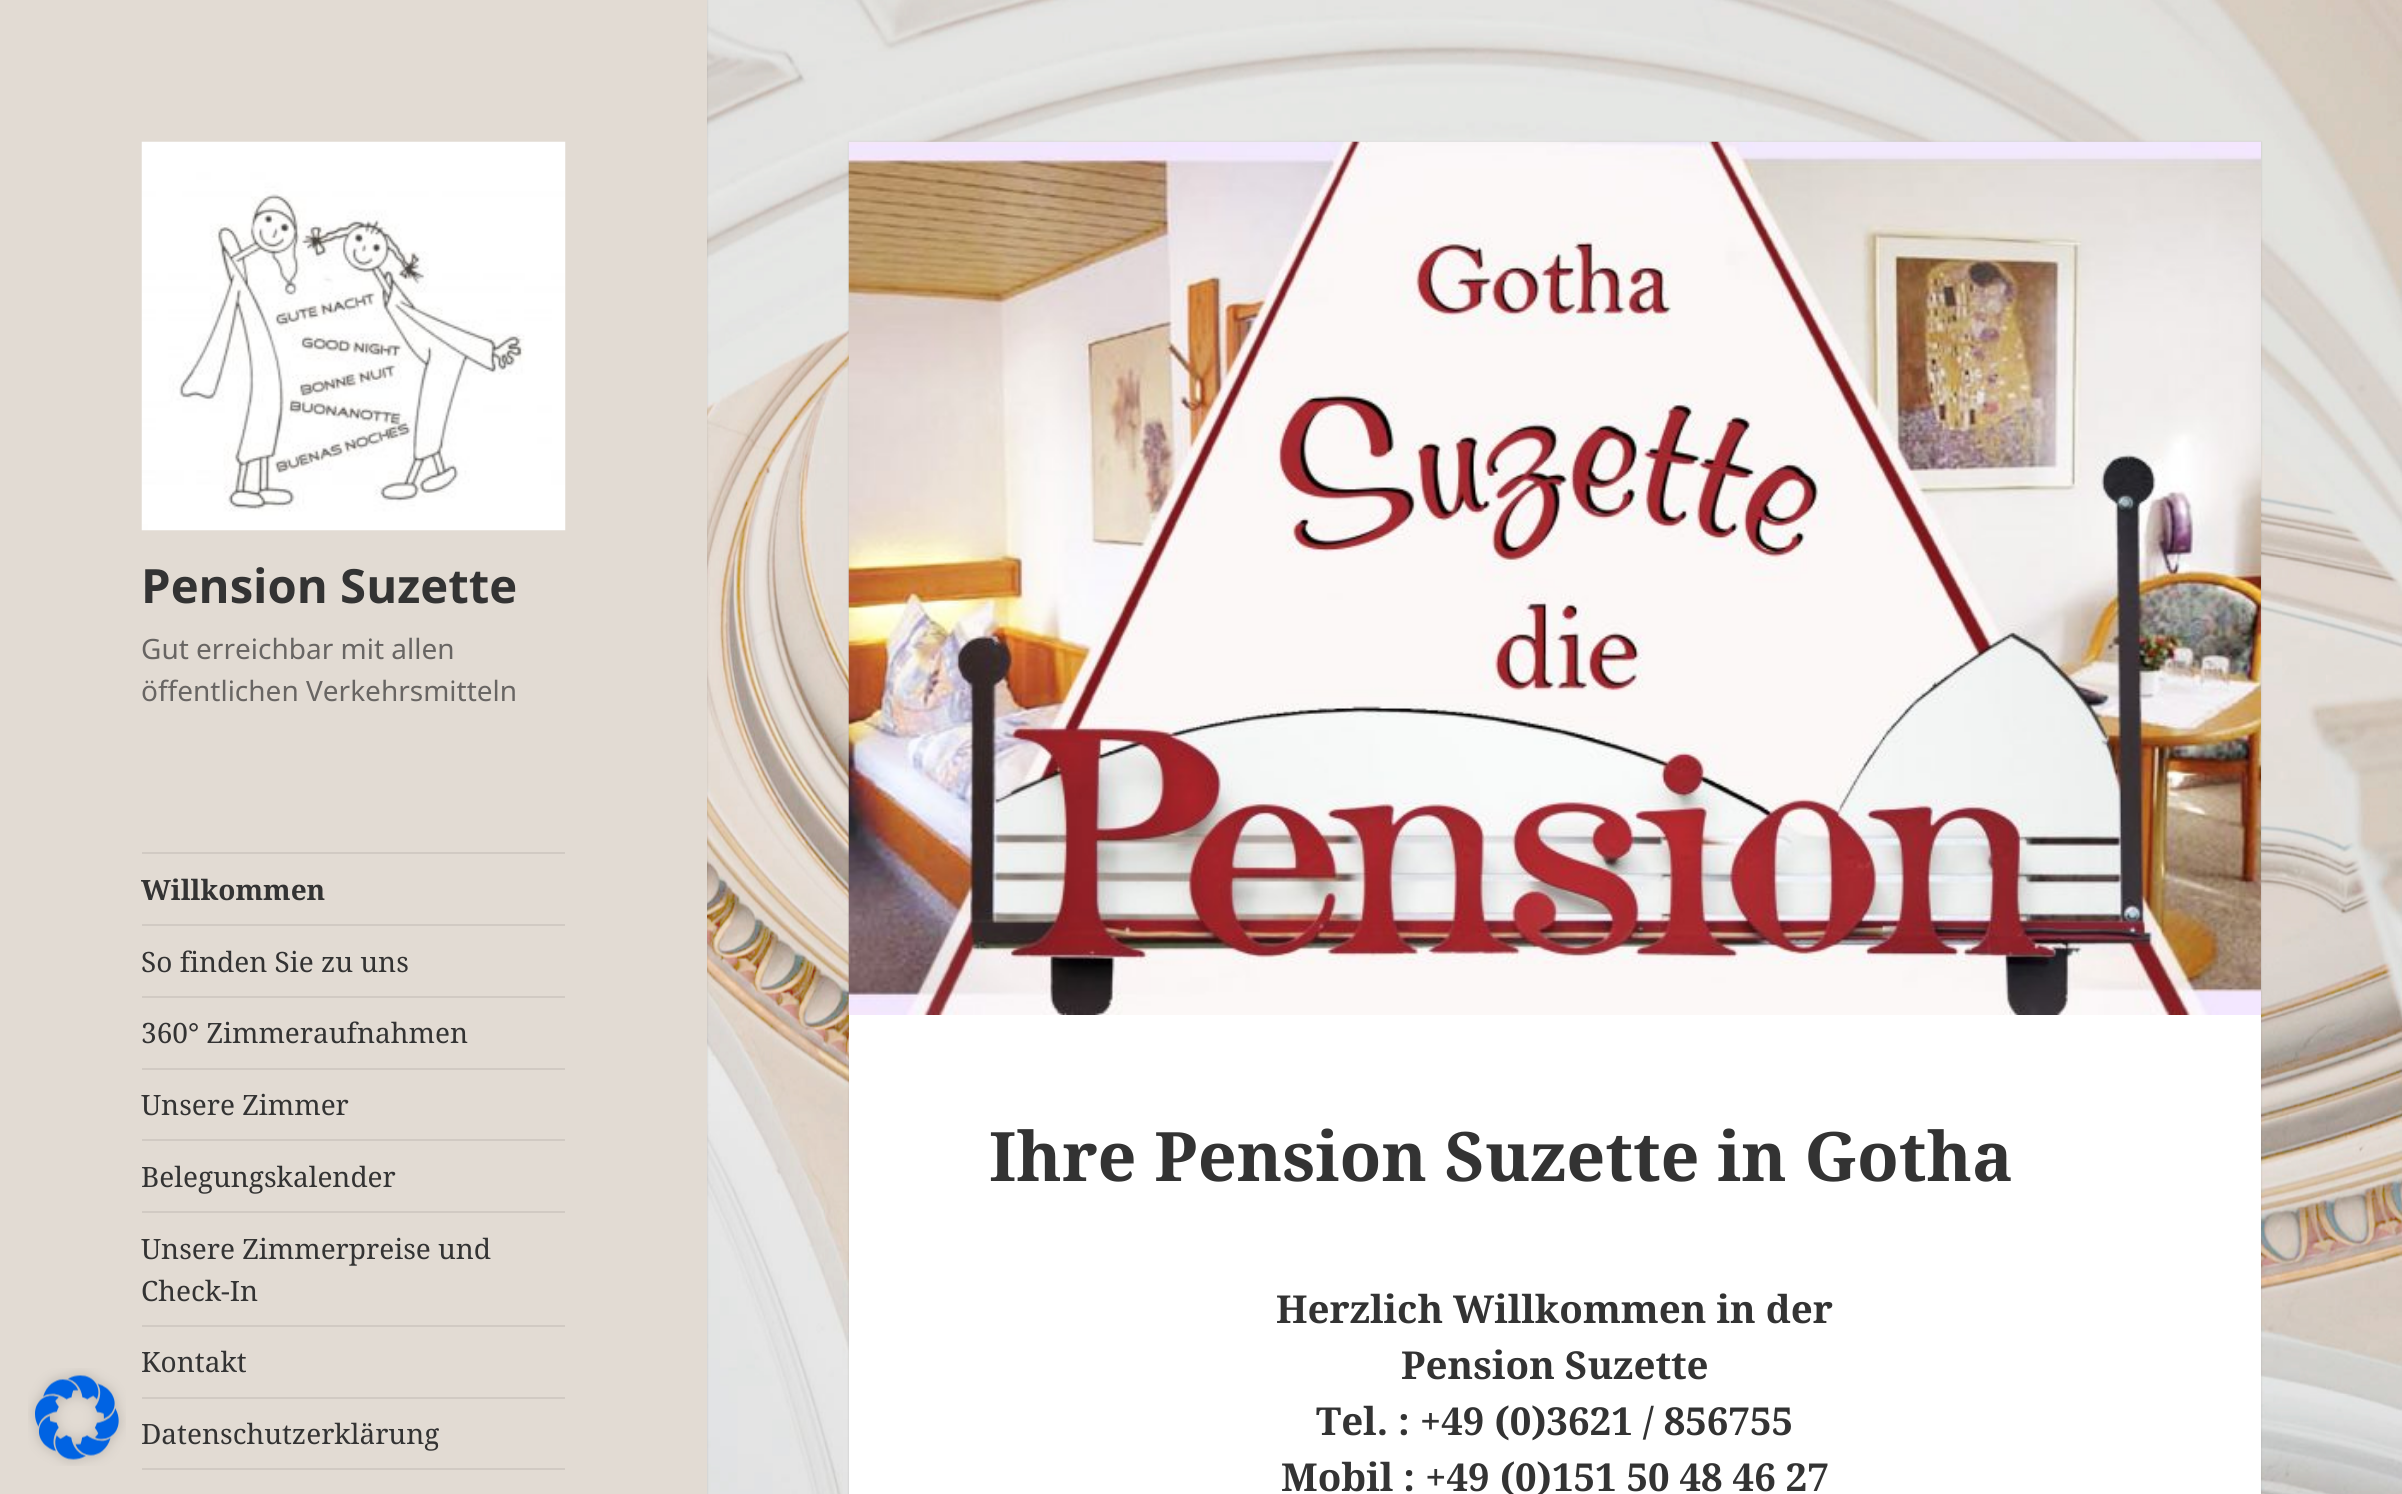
import math
import cairo

surface = cairo.ImageSurface(cairo.FORMAT_RGB24, 2402, 1494)
ctx = cairo.Context(surface)
options = cairo.FontOptions()
options.set_hint_metrics(cairo.HINT_METRICS_OFF)
options.set_hint_style(cairo.HINT_STYLE_NONE)
ctx.set_font_options(options)
ctx.set_miter_limit(4)


def round_rect(x, y, w, h, r):
    ctx.new_sub_path()
    for i, (u, v) in enumerate([(x + w - r, y + h - r), (x + r, y + h - r), (x + r, y + r), (x + w - r, y + r)]):
        ctx.arc(u, v, r, i * math.pi / 2, (i + 1) * math.pi / 2)
    ctx.close_path()


def shadow(x, y, w, h, r, blur, alpha):
    ctx.push_group_with_content(cairo.CONTENT_ALPHA)
    ctx.set_operator(cairo.OPERATOR_SOURCE)
    for i in range(15, -16, -2):
        e = blur * i / 6
        if min(w, h) + 2 * e > 0:
            ctx.set_source_rgba(0, 0, 0, alpha * math.erfc((i - 1) / 8.5) / 2)
            round_rect(x - e, y - e, w + 2 * e, h + 2 * e, max(0, min(r + e + blur * .6, min(w, h) / 2 + e)))
            ctx.fill()
    ctx.mask(ctx.pop_group())


def picture(path, x, y, w, h):
    ctx.save()
    ctx.set_source_surface(cairo.ImageSurface.create_from_png(path), x, y)
    ctx.rectangle(x, y, w, h)
    ctx.fill()
    ctx.restore()


ctx.set_source_rgb(1, 1, 1)
ctx.paint()
picture("img1.png", 707, 0, 1695, 1494)
ctx.set_source_rgb(0, 0, 0)
shadow(0, 0, 707, 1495, 0, 1, 0.15)
ctx.set_source_rgb(0.886, 0.859, 0.827)
ctx.rectangle(0, 0, 707, 1494)
ctx.fill()
picture("img2.png", 28, 1368, 98, 98)
picture("img3.png", 141, 141, 425, 390)
ctx.select_font_face("Noto Sans", cairo.FONT_SLANT_NORMAL, cairo.FONT_WEIGHT_BOLD)
ctx.set_font_size(47.25)
ctx.set_source_rgb(0.2, 0.2, 0.2)
ctx.move_to(141, 603)
ctx.show_text("Pension Suzette")
ctx.select_font_face("Noto Sans")
ctx.set_font_size(28)
ctx.set_source_rgb(0.408, 0.396, 0.388)
ctx.move_to(141, 659)
ctx.show_text("Gut erreichbar mit allen")
ctx.move_to(141, 701)
ctx.show_text("öffentlichen Verkehrsmitteln")
ctx.set_source_rgb(0.82, 0.792, 0.765)
ctx.rectangle(142, 852, 423, 2)
ctx.fill()
ctx.select_font_face("Noto Serif", cairo.FONT_SLANT_NORMAL, cairo.FONT_WEIGHT_BOLD)
ctx.set_source_rgb(0.2, 0.2, 0.2)
ctx.move_to(141, 900)
ctx.show_text("Willkommen")
ctx.set_source_rgb(0.82, 0.792, 0.765)
ctx.rectangle(142, 924, 423, 2)
ctx.fill()
ctx.select_font_face("Noto Serif")
ctx.set_source_rgb(0.2, 0.2, 0.2)
ctx.move_to(141, 972)
ctx.show_text("So finden Sie zu uns")
ctx.set_source_rgb(0.82, 0.792, 0.765)
ctx.rectangle(142, 996, 423, 2)
ctx.fill()
ctx.set_source_rgb(0.2, 0.2, 0.2)
ctx.move_to(141, 1043)
ctx.show_text("360° Zimmeraufnahmen")
ctx.set_source_rgb(0.82, 0.792, 0.765)
ctx.rectangle(142, 1068, 423, 2)
ctx.fill()
ctx.set_source_rgb(0.2, 0.2, 0.2)
ctx.move_to(141, 1115)
ctx.show_text("Unsere Zimmer")
ctx.set_source_rgb(0.82, 0.792, 0.765)
ctx.rectangle(142, 1139, 423, 2)
ctx.fill()
ctx.set_source_rgb(0.2, 0.2, 0.2)
ctx.move_to(141, 1187)
ctx.show_text("Belegungskalender")
ctx.set_source_rgb(0.82, 0.792, 0.765)
ctx.rectangle(142, 1211, 423, 2)
ctx.fill()
ctx.set_source_rgb(0.2, 0.2, 0.2)
ctx.move_to(141, 1259)
ctx.show_text("Unsere Zimmerpreise und")
ctx.move_to(141, 1301)
ctx.show_text("Check-In")
ctx.set_source_rgb(0.82, 0.792, 0.765)
ctx.rectangle(142, 1325, 423, 2)
ctx.fill()
ctx.set_source_rgb(0.2, 0.2, 0.2)
ctx.move_to(141, 1372)
ctx.show_text("Kontakt")
ctx.set_source_rgb(0.82, 0.792, 0.765)
ctx.rectangle(142, 1397, 423, 2)
ctx.fill()
ctx.set_source_rgb(0.2, 0.2, 0.2)
ctx.move_to(141, 1444)
ctx.show_text("Datenschutzerklärung")
ctx.set_source_rgb(0.82, 0.792, 0.765)
ctx.rectangle(142, 1468, 423, 2)
ctx.fill()
ctx.set_source_rgb(0, 0, 0)
shadow(849, 142, 1412, 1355, 0, 1, 0.15)
ctx.set_source_rgb(1, 1, 1)
ctx.rectangle(849, 1015, 1412, 479)
ctx.fill()
picture("img4.png", 848, 141, 1413, 874)
ctx.select_font_face("Noto Serif", cairo.FONT_SLANT_NORMAL, cairo.FONT_WEIGHT_BOLD)
ctx.set_font_size(68.25)
ctx.set_source_rgb(0.2, 0.2, 0.2)
ctx.move_to(989, 1181)
ctx.show_text("Ihre Pension Suzette in Gotha")
ctx.set_font_size(38.5)
ctx.move_to(1276, 1323)
ctx.show_text("Herzlich Willkommen in der")
ctx.move_to(1401, 1379)
ctx.show_text("Pension Suzette")
ctx.move_to(1316, 1435)
ctx.show_text("Tel. : +49 (0)3621 / 856755")
ctx.move_to(1281, 1491)
ctx.show_text("Mobil : +49 (0)151 50 48 46 27")
surface.write_to_png("page.png")
